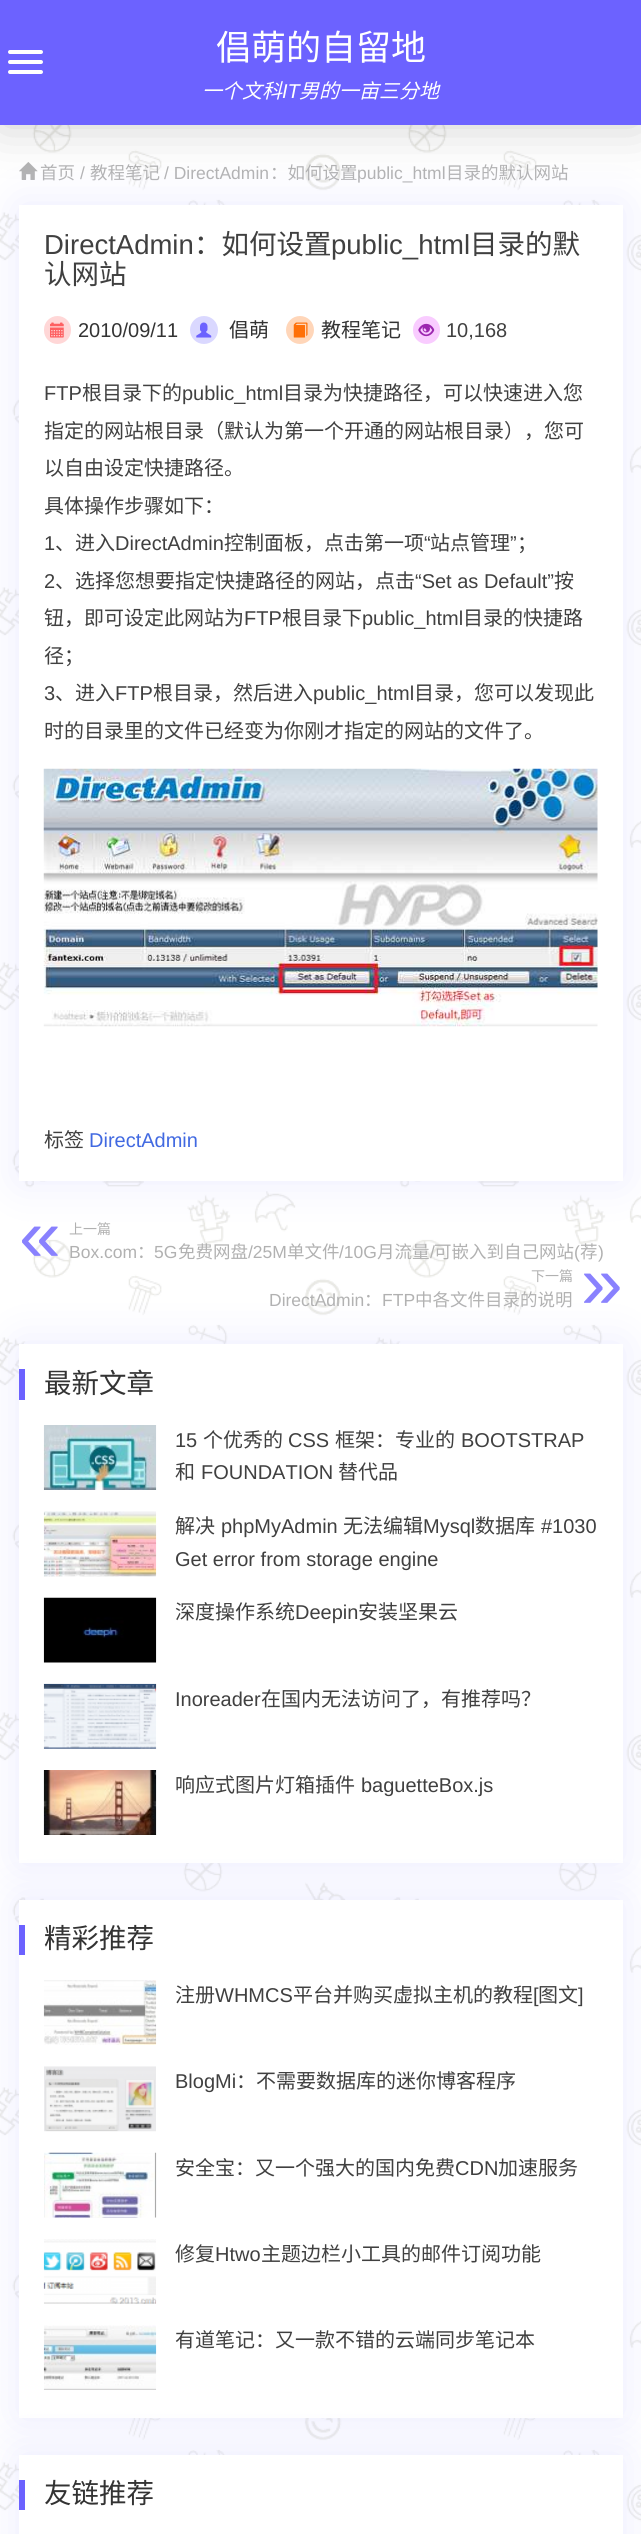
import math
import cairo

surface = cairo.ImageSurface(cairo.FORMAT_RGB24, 641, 2534)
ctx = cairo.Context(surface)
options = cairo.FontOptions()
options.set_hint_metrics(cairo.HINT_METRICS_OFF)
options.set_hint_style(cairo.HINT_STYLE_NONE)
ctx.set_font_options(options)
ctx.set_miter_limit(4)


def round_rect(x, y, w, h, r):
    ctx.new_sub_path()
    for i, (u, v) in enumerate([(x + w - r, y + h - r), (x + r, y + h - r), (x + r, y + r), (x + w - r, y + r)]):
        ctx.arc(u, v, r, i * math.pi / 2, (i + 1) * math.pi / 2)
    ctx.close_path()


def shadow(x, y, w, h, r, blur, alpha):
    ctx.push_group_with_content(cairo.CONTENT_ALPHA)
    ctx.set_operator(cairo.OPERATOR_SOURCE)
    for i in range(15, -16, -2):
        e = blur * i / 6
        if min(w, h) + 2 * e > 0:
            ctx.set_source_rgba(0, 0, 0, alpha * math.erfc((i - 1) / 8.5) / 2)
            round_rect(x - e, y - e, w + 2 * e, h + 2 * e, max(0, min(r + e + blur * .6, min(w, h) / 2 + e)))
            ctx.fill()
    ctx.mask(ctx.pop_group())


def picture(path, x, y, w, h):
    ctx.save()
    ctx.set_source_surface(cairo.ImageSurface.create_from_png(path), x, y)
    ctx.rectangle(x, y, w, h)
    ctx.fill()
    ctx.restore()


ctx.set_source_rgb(1, 1, 1)
ctx.paint()
picture("img1.png", 0, 125, 641, 2399)
ctx.set_source_rgb(0, 0, 0)
shadow(0, 0, 641, 125, 0, 25, 0.2)
ctx.set_source_rgb(0.424, 0.384, 1)
ctx.rectangle(0, 0, 641, 125)
ctx.fill()
ctx.set_source_rgb(1, 1, 1)
round_rect(8, 50, 35, 4, 2)
ctx.fill()
round_rect(8, 60, 35, 4, 2)
ctx.fill()
round_rect(8, 70, 35, 4, 2)
ctx.fill()
ctx.select_font_face("Noto Sans CJK SC")
ctx.set_font_size(35)
ctx.move_to(216, 60)
ctx.show_text("倡萌的自留地")
ctx.select_font_face("Noto Sans CJK SC", cairo.FONT_SLANT_ITALIC)
ctx.set_font_size(20)
ctx.move_to(202, 98)
ctx.show_text("一个文科")
ctx.select_font_face("Liberation Sans", cairo.FONT_SLANT_ITALIC)
ctx.move_to(282, 98)
ctx.show_text("IT")
ctx.select_font_face("Noto Sans CJK SC", cairo.FONT_SLANT_ITALIC)
ctx.move_to(299, 98)
ctx.show_text("男的一亩三分地")
picture("img2.png", 19, 162, 19, 18)
ctx.select_font_face("Noto Sans CJK SC")
ctx.set_font_size(17.5)
ctx.set_source_rgb(0.694, 0.694, 0.694)
ctx.move_to(40, 179)
ctx.show_text("首页")
ctx.select_font_face("Liberation Sans")
ctx.move_to(80, 179)
ctx.show_text("/")
ctx.select_font_face("Noto Sans CJK SC")
ctx.move_to(90, 179)
ctx.show_text("教程笔记")
ctx.select_font_face("Liberation Sans")
ctx.move_to(164, 179)
ctx.show_text("/ DirectAdmin")
ctx.select_font_face("Noto Sans CJK SC")
ctx.move_to(270, 179)
ctx.show_text("：如何设置")
ctx.select_font_face("Liberation Sans")
ctx.move_to(357, 179)
ctx.show_text("public_html")
ctx.select_font_face("Noto Sans CJK SC")
ctx.move_to(446, 179)
ctx.show_text("目录的默认网站")
ctx.set_source_rgb(0.863, 0.859, 1)
shadow(19, 205, 604, 976, 0, 22, 0.57)
ctx.set_source_rgb(1, 1, 1)
ctx.rectangle(19, 205, 604, 976)
ctx.fill()
ctx.select_font_face("Liberation Sans")
ctx.set_font_size(27.5)
ctx.set_source_rgb(0.251, 0.251, 0.251)
ctx.move_to(44, 254)
ctx.show_text("DirectAdmin")
ctx.select_font_face("Noto Sans CJK SC")
ctx.move_to(194, 254)
ctx.show_text("：如何设置")
ctx.select_font_face("Liberation Sans")
ctx.move_to(331, 254)
ctx.show_text("public_html")
ctx.select_font_face("Noto Sans CJK SC")
ctx.move_to(470, 254)
ctx.show_text("目录的默")
ctx.move_to(44, 284)
ctx.show_text("认网站")
ctx.set_source_rgb(1, 0.843, 0.843)
round_rect(44, 316, 27, 28, 13.5)
ctx.fill()
picture("img3.png", 50, 322, 14, 16)
ctx.select_font_face("Liberation Sans")
ctx.set_font_size(20)
ctx.set_source_rgb(0.2, 0.2, 0.2)
ctx.move_to(78, 337)
ctx.show_text("2010/09/11")
ctx.set_source_rgb(0.855, 0.847, 1)
ctx.new_path()
ctx.arc(204, 330, 14, 0, 2 * math.pi)
ctx.fill()
picture("img4.png", 196, 322, 16, 16)
ctx.select_font_face("Noto Sans CJK SC")
ctx.set_source_rgb(0.2, 0.2, 0.2)
ctx.move_to(229, 337)
ctx.show_text("倡萌")
ctx.set_source_rgb(1, 0.839, 0.725)
ctx.new_path()
ctx.arc(300, 330, 14, 0, 2 * math.pi)
ctx.fill()
picture("img5.png", 293, 322, 15, 16)
ctx.set_source_rgb(0.2, 0.2, 0.2)
ctx.move_to(321, 337)
ctx.show_text("教程笔记")
ctx.set_source_rgb(0.973, 0.8, 1)
round_rect(413, 316, 27, 28, 13.5)
ctx.fill()
picture("img6.png", 418, 323, 17, 14)
ctx.select_font_face("Liberation Sans")
ctx.set_source_rgb(0.251, 0.251, 0.251)
ctx.move_to(446, 337)
ctx.show_text("10,168")
ctx.move_to(44, 400)
ctx.show_text("FTP")
ctx.select_font_face("Noto Sans CJK SC")
ctx.move_to(82, 400)
ctx.show_text("根目录下的")
ctx.select_font_face("Liberation Sans")
ctx.move_to(182, 400)
ctx.show_text("public_html")
ctx.select_font_face("Noto Sans CJK SC")
ctx.move_to(283, 400)
ctx.show_text("目录为快捷路径，可以快速进入您")
ctx.move_to(44, 438)
ctx.show_text("指定的网站根目录（默认为第一个开通的网站根目录），您可")
ctx.move_to(44, 475)
ctx.show_text("以自由设定快捷路径。")
ctx.move_to(44, 513)
ctx.show_text("具体操作步骤如下：")
ctx.select_font_face("Liberation Sans")
ctx.move_to(44, 550)
ctx.show_text("1")
ctx.select_font_face("Noto Sans CJK SC")
ctx.move_to(55, 550)
ctx.show_text("、进入")
ctx.select_font_face("Liberation Sans")
ctx.move_to(115, 550)
ctx.show_text("DirectAdmin")
ctx.select_font_face("Noto Sans CJK SC")
ctx.move_to(224, 550)
ctx.show_text("控制面板，点击第一项")
ctx.select_font_face("Liberation Sans")
ctx.move_to(424, 550)
ctx.show_text("“")
ctx.select_font_face("Noto Sans CJK SC")
ctx.move_to(430, 550)
ctx.show_text("站点管理")
ctx.select_font_face("Liberation Sans")
ctx.move_to(510, 550)
ctx.show_text("”")
ctx.select_font_face("Noto Sans CJK SC")
ctx.move_to(517, 550)
ctx.show_text("；")
ctx.select_font_face("Liberation Sans")
ctx.move_to(44, 588)
ctx.show_text("2")
ctx.select_font_face("Noto Sans CJK SC")
ctx.move_to(55, 588)
ctx.show_text("、选择您想要指定快捷路径的网站，点击")
ctx.select_font_face("Liberation Sans")
ctx.move_to(415, 588)
ctx.show_text("“Set as Default”")
ctx.select_font_face("Noto Sans CJK SC")
ctx.move_to(554, 588)
ctx.show_text("按")
ctx.move_to(44, 625)
ctx.show_text("钮，即可设定此网站为")
ctx.select_font_face("Liberation Sans")
ctx.move_to(244, 625)
ctx.show_text("FTP")
ctx.select_font_face("Noto Sans CJK SC")
ctx.move_to(282, 625)
ctx.show_text("根目录下")
ctx.select_font_face("Liberation Sans")
ctx.move_to(362, 625)
ctx.show_text("public_html")
ctx.select_font_face("Noto Sans CJK SC")
ctx.move_to(463, 625)
ctx.show_text("目录的快捷路")
ctx.move_to(44, 663)
ctx.show_text("径；")
ctx.select_font_face("Liberation Sans")
ctx.move_to(44, 700)
ctx.show_text("3")
ctx.select_font_face("Noto Sans CJK SC")
ctx.move_to(55, 700)
ctx.show_text("、进入")
ctx.select_font_face("Liberation Sans")
ctx.move_to(115, 700)
ctx.show_text("FTP")
ctx.select_font_face("Noto Sans CJK SC")
ctx.move_to(153, 700)
ctx.show_text("根目录，然后进入")
ctx.select_font_face("Liberation Sans")
ctx.move_to(313, 700)
ctx.show_text("public_html")
ctx.select_font_face("Noto Sans CJK SC")
ctx.move_to(414, 700)
ctx.show_text("目录，您可以发现此")
ctx.move_to(44, 738)
ctx.show_text("时的目录里的文件已经变为你刚才指定的网站的文件了。")
picture("img7.png", 43, 768, 555, 259)
ctx.move_to(44, 1147)
ctx.show_text("标签")
ctx.select_font_face("Liberation Sans")
ctx.set_source_rgb(0.255, 0.412, 0.882)
ctx.move_to(89, 1147)
ctx.show_text("DirectAdmin")
ctx.set_font_size(75)
ctx.set_source_rgb(0.537, 0.506, 0.996)
ctx.move_to(19, 1261)
ctx.show_text("«")
ctx.select_font_face("Noto Sans CJK SC")
ctx.set_font_size(14)
ctx.set_source_rgb(0.694, 0.694, 0.694)
ctx.move_to(69, 1234)
ctx.show_text("上一篇")
ctx.set_font_size(17.5)
ctx.move_to(178, 1258)
ctx.show_text("免费网盘")
ctx.move_to(287, 1258)
ctx.show_text("单文件")
ctx.move_to(377, 1258)
ctx.show_text("月流量")
ctx.move_to(434, 1258)
ctx.show_text("可嵌入到自己网站")
ctx.select_font_face("Liberation Sans")
ctx.move_to(574, 1258)
ctx.show_text("(")
ctx.select_font_face("Noto Sans CJK SC")
ctx.move_to(580, 1258)
ctx.show_text("荐")
ctx.select_font_face("Liberation Sans")
ctx.move_to(69, 1258)
ctx.show_text("Box.com")
ctx.select_font_face("Noto Sans CJK SC")
ctx.move_to(137, 1258)
ctx.show_text("：")
ctx.select_font_face("Liberation Sans")
ctx.move_to(154, 1258)
ctx.show_text("5G")
ctx.move_to(248, 1258)
ctx.show_text("/25M")
ctx.move_to(339, 1258)
ctx.show_text("/10G")
ctx.move_to(430, 1258)
ctx.show_text("/")
ctx.move_to(598, 1258)
ctx.show_text(")")
ctx.select_font_face("Noto Sans CJK SC")
ctx.set_font_size(14)
ctx.move_to(531, 1281)
ctx.show_text("下一篇")
ctx.select_font_face("Liberation Sans")
ctx.set_font_size(75)
ctx.set_source_rgb(0.537, 0.506, 0.996)
ctx.move_to(581, 1308)
ctx.show_text("»")
ctx.set_font_size(17.5)
ctx.set_source_rgb(0.694, 0.694, 0.694)
ctx.move_to(269, 1306)
ctx.show_text("DirectAdmin")
ctx.select_font_face("Noto Sans CJK SC")
ctx.move_to(364, 1306)
ctx.show_text("：")
ctx.select_font_face("Liberation Sans")
ctx.move_to(382, 1306)
ctx.show_text("FTP")
ctx.select_font_face("Noto Sans CJK SC")
ctx.move_to(415, 1306)
ctx.show_text("中各文件目录的说明")
ctx.set_source_rgb(0.863, 0.859, 1)
shadow(19, 1344, 604, 519, 0, 22, 0.57)
ctx.set_source_rgb(1, 1, 1)
ctx.rectangle(19, 1344, 604, 519)
ctx.fill()
ctx.set_source_rgb(0.424, 0.384, 1)
ctx.rectangle(19, 1369, 6, 31)
ctx.fill()
ctx.set_font_size(27.5)
ctx.set_source_rgb(0.2, 0.2, 0.2)
ctx.move_to(44, 1393)
ctx.show_text("最新文章")
picture("img8.png", 43, 1425, 114, 65)
ctx.select_font_face("Liberation Sans")
ctx.set_font_size(20)
ctx.set_source_rgb(0.251, 0.251, 0.251)
ctx.move_to(175, 1447)
ctx.show_text("15")
ctx.select_font_face("Noto Sans CJK SC")
ctx.move_to(203, 1447)
ctx.show_text("个优秀的")
ctx.select_font_face("Liberation Sans")
ctx.move_to(288, 1447)
ctx.show_text("CSS")
ctx.select_font_face("Noto Sans CJK SC")
ctx.move_to(335, 1447)
ctx.show_text("框架：专业的")
ctx.select_font_face("Liberation Sans")
ctx.move_to(461, 1447)
ctx.show_text("BOOTSTRAP")
ctx.select_font_face("Noto Sans CJK SC")
ctx.move_to(175, 1479)
ctx.show_text("和")
ctx.select_font_face("Liberation Sans")
ctx.move_to(201, 1479)
ctx.show_text("FOUNDATION")
ctx.select_font_face("Noto Sans CJK SC")
ctx.move_to(338, 1479)
ctx.show_text("替代品")
picture("img9.png", 43, 1511, 114, 66)
ctx.move_to(175, 1533)
ctx.show_text("解决")
ctx.select_font_face("Liberation Sans")
ctx.move_to(221, 1533)
ctx.show_text("phpMyAdmin")
ctx.select_font_face("Noto Sans CJK SC")
ctx.move_to(343, 1533)
ctx.show_text("无法编辑")
ctx.select_font_face("Liberation Sans")
ctx.move_to(423, 1533)
ctx.show_text("Mysql")
ctx.select_font_face("Noto Sans CJK SC")
ctx.move_to(475, 1533)
ctx.show_text("数据库")
ctx.select_font_face("Liberation Sans")
ctx.move_to(541, 1533)
ctx.show_text("#1030")
ctx.move_to(175, 1566)
ctx.show_text("Get error from storage engine")
picture("img10.png", 43, 1597, 114, 66)
ctx.select_font_face("Noto Sans CJK SC")
ctx.move_to(175, 1619)
ctx.show_text("深度操作系统")
ctx.select_font_face("Liberation Sans")
ctx.move_to(295, 1619)
ctx.show_text("Deepin")
ctx.select_font_face("Noto Sans CJK SC")
ctx.move_to(358, 1619)
ctx.show_text("安装坚果云")
picture("img11.png", 43, 1683, 114, 66)
ctx.select_font_face("Liberation Sans")
ctx.move_to(175, 1706)
ctx.show_text("Inoreader")
ctx.select_font_face("Noto Sans CJK SC")
ctx.move_to(261, 1706)
ctx.show_text("在国内无法访问了，有推荐吗？")
ctx.set_source_rgb(0.863, 0.859, 1)
shadow(19, 1900, 604, 518, 0, 22, 0.57)
picture("img12.png", 43, 1770, 114, 65)
ctx.set_source_rgb(0.251, 0.251, 0.251)
ctx.move_to(175, 1792)
ctx.show_text("响应式图片灯箱插件")
ctx.select_font_face("Liberation Sans")
ctx.move_to(361, 1792)
ctx.show_text("baguetteBox.js")
ctx.set_source_rgb(1, 1, 1)
ctx.rectangle(19, 1900, 604, 518)
ctx.fill()
ctx.set_source_rgb(0.424, 0.384, 1)
ctx.rectangle(19, 1925, 6, 30)
ctx.fill()
ctx.select_font_face("Noto Sans CJK SC")
ctx.set_font_size(27.5)
ctx.set_source_rgb(0.2, 0.2, 0.2)
ctx.move_to(44, 1948)
ctx.show_text("精彩推荐")
picture("img13.png", 43, 1980, 114, 65)
ctx.set_font_size(20)
ctx.set_source_rgb(0.251, 0.251, 0.251)
ctx.move_to(175, 2002)
ctx.show_text("注册")
ctx.select_font_face("Liberation Sans")
ctx.move_to(215, 2002)
ctx.show_text("WHMCS")
ctx.select_font_face("Noto Sans CJK SC")
ctx.move_to(293, 2002)
ctx.show_text("平台并购买虚拟主机的教程")
ctx.select_font_face("Liberation Sans")
ctx.move_to(533, 2002)
ctx.show_text("[")
ctx.select_font_face("Noto Sans CJK SC")
ctx.move_to(538, 2002)
ctx.show_text("图文")
ctx.select_font_face("Liberation Sans")
ctx.move_to(578, 2002)
ctx.show_text("]")
picture("img14.png", 44, 2066, 112, 66)
ctx.move_to(175, 2088)
ctx.show_text("BlogMi")
ctx.select_font_face("Noto Sans CJK SC")
ctx.move_to(236, 2088)
ctx.show_text("：不需要数据库的迷你博客程序")
picture("img15.png", 44, 2152, 113, 66)
ctx.move_to(175, 2175)
ctx.show_text("安全宝：又一个强大的国内免费")
ctx.select_font_face("Liberation Sans")
ctx.move_to(455, 2175)
ctx.show_text("CDN")
ctx.select_font_face("Noto Sans CJK SC")
ctx.move_to(498, 2175)
ctx.show_text("加速服务")
picture("img16.png", 43, 2239, 114, 65)
ctx.move_to(175, 2261)
ctx.show_text("修复")
ctx.select_font_face("Liberation Sans")
ctx.move_to(215, 2261)
ctx.show_text("Htwo")
ctx.select_font_face("Noto Sans CJK SC")
ctx.move_to(261, 2261)
ctx.show_text("主题边栏小工具的邮件订阅功能")
ctx.set_source_rgb(0.863, 0.859, 1)
shadow(19, 2455, 604, 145, 0, 22, 0.57)
picture("img17.png", 43, 2325, 114, 65)
ctx.set_source_rgb(0.251, 0.251, 0.251)
ctx.move_to(175, 2347)
ctx.show_text("有道笔记：又一款不错的云端同步笔记本")
ctx.set_source_rgb(1, 1, 1)
ctx.rectangle(19, 2455, 604, 79)
ctx.fill()
ctx.set_source_rgb(0.424, 0.384, 1)
ctx.rectangle(19, 2480, 6, 30)
ctx.fill()
ctx.set_font_size(27.5)
ctx.set_source_rgb(0.2, 0.2, 0.2)
ctx.move_to(44, 2503)
ctx.show_text("友链推荐")
surface.write_to_png("page.png")
